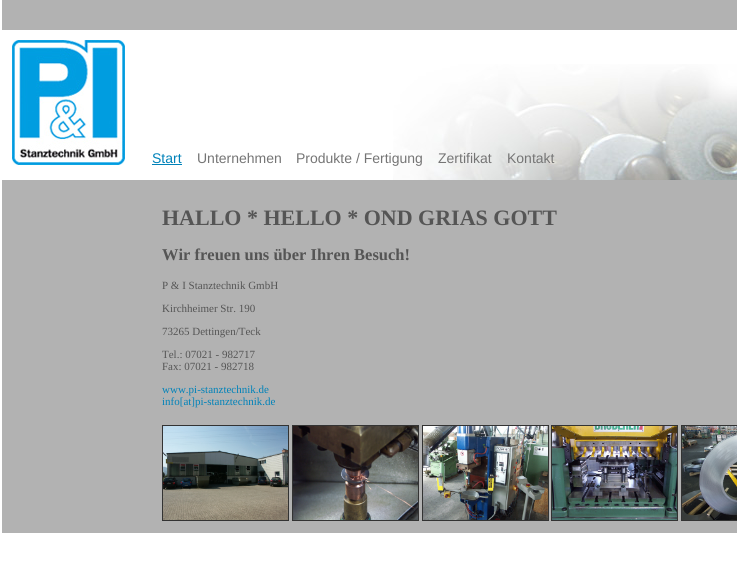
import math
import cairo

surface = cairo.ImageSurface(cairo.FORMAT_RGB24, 737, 563)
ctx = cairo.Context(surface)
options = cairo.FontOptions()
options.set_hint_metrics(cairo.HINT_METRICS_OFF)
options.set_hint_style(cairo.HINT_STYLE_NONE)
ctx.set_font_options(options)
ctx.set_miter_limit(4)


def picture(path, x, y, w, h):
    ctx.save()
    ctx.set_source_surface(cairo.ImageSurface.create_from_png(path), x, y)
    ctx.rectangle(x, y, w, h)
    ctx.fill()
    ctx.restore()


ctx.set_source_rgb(0.698, 0.698, 0.698)
ctx.paint()
ctx.set_source_rgb(1, 1, 1)
ctx.rectangle(0, 0, 2, 533)
ctx.fill()
ctx.rectangle(2, 30, 735, 150)
ctx.fill()
picture("img1.png", 393, 64, 344, 116)
picture("img2.png", 12, 40, 113, 125)
ctx.select_font_face("Liberation Sans")
ctx.set_font_size(14)
ctx.set_source_rgb(0, 0.51, 0.725)
ctx.move_to(152, 163)
ctx.show_text("Start")
ctx.rectangle(152, 164, 30, 1)
ctx.fill()
ctx.set_source_rgb(0.459, 0.459, 0.459)
ctx.move_to(197, 163)
ctx.show_text("Unternehmen")
ctx.move_to(296, 163)
ctx.show_text("Produkte / Fertigung")
ctx.move_to(438, 163)
ctx.show_text("Zertifikat")
ctx.move_to(507, 163)
ctx.show_text("Kontakt")
ctx.select_font_face("Liberation Serif", cairo.FONT_SLANT_NORMAL, cairo.FONT_WEIGHT_BOLD)
ctx.set_font_size(22)
ctx.set_source_rgb(0.333, 0.333, 0.333)
ctx.move_to(162, 225)
ctx.show_text("HALLO * HELLO * OND GRIAS GOTT")
ctx.set_font_size(16.5)
ctx.move_to(162, 260)
ctx.show_text("Wir freuen uns über Ihren Besuch!")
ctx.select_font_face("Liberation Serif")
ctx.set_font_size(11)
ctx.move_to(162, 289)
ctx.show_text("P & I Stanztechnik GmbH")
ctx.move_to(162, 312)
ctx.show_text("Kirchheimer Str. 190")
ctx.move_to(162, 335)
ctx.show_text("73265 Dettingen/Teck")
ctx.move_to(162, 358)
ctx.show_text("Tel.: 07021 - 982717")
ctx.move_to(162, 370)
ctx.show_text("Fax: 07021 - 982718")
ctx.set_source_rgb(0, 0.51, 0.725)
ctx.move_to(162, 393)
ctx.show_text("www.pi-stanztechnik.de")
ctx.move_to(162, 405)
ctx.show_text("info[at]pi-stanztechnik.de")
ctx.rectangle(162.5, 425.5, 126, 95)
ctx.set_source_rgb(0.2, 0.2, 0.2)
ctx.set_line_width(1)
ctx.stroke()
ctx.rectangle(292.5, 425.5, 126, 95)
ctx.stroke()
ctx.rectangle(422.5, 425.5, 126, 95)
ctx.stroke()
ctx.rectangle(551.5, 425.5, 126, 95)
ctx.stroke()
ctx.rectangle(681.5, 425.5, 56, 95)
ctx.stroke()
picture("img3.png", 163, 426, 125, 94)
picture("img4.png", 293, 426, 125, 94)
picture("img5.png", 423, 426, 125, 94)
picture("img6.png", 552, 426, 125, 94)
picture("img7.png", 682, 426, 55, 94)
ctx.set_source_rgb(1, 1, 1)
ctx.rectangle(0, 533, 737, 30)
ctx.fill()
surface.write_to_png("page.png")
